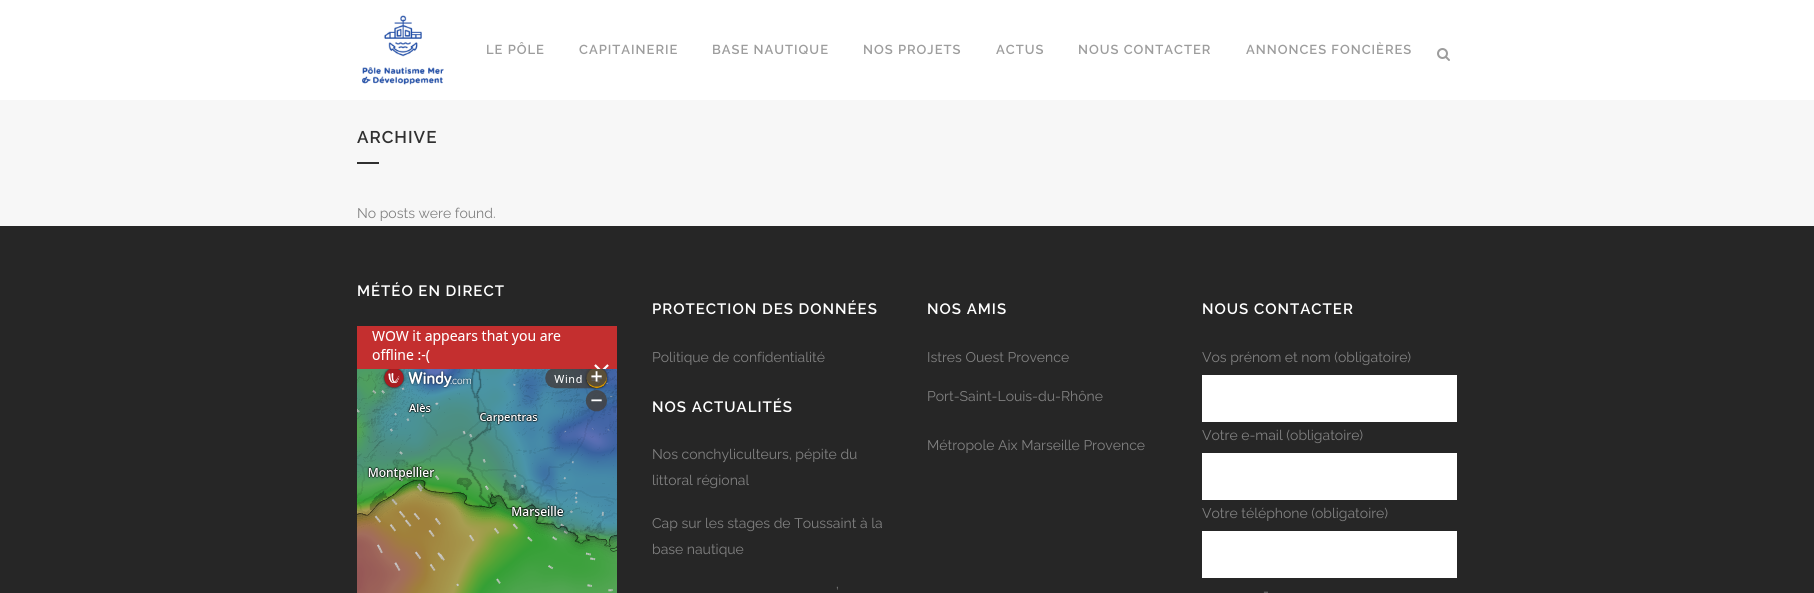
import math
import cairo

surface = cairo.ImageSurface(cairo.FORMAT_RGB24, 1814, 593)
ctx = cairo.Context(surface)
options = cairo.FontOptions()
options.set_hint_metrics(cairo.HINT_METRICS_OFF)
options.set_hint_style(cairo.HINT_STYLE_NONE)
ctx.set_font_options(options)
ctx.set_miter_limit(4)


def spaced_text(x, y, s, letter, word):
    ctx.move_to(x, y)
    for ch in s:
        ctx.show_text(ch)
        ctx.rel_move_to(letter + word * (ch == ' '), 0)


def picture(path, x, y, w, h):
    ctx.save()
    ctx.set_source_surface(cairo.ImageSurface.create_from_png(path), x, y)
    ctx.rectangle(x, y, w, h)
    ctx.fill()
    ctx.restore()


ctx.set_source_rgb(0.965, 0.965, 0.965)
ctx.paint()
ctx.set_source_rgb(1, 1, 1)
ctx.rectangle(0, 0, 1814, 100)
ctx.fill()
picture("img1.png", 362, 15, 82, 70)
ctx.select_font_face("Raleway SemiBold")
ctx.set_font_size(13)
ctx.set_source_rgb(0.616, 0.616, 0.616)
spaced_text(486, 54, "LE PÔLE", 1, 0)
spaced_text(579, 54, "CAPITAINERIE", 1, 0)
spaced_text(712, 54, "BASE NAUTIQUE", 1, 0)
spaced_text(863, 54, "NOS PROJETS", 1, 0)
spaced_text(996, 54, "ACTUS", 1, 0)
spaced_text(1078, 54, "NOUS CONTACTER", 1, 0)
spaced_text(1246, 54, "ANNONCES FONCIÈRES", 1, 0)
picture("img2.png", 1437, 48, 13, 13)
ctx.set_font_size(17)
ctx.set_source_rgb(0.188, 0.188, 0.188)
spaced_text(357, 143, "ARCHIVE", 1, 0)
ctx.rectangle(357, 162, 22, 2)
ctx.fill()
ctx.select_font_face("Raleway")
ctx.set_font_size(14)
ctx.set_source_rgb(0.506, 0.506, 0.506)
ctx.move_to(357, 218)
ctx.show_text("No posts were found.")
ctx.set_source_rgb(0.149, 0.149, 0.149)
ctx.rectangle(0, 226, 1814, 367)
ctx.fill()
ctx.select_font_face("Raleway SemiBold")
ctx.set_font_size(15)
ctx.set_source_rgb(1, 1, 1)
spaced_text(357, 296, "MÉTÉO EN DIRECT", 1, 0)
picture("img3.png", 357, 326, 260, 267)
spaced_text(652, 314, "PROTECTION DES DONNÉES", 1, 0)
ctx.select_font_face("Raleway")
ctx.set_font_size(14)
ctx.set_source_rgb(0.506, 0.506, 0.506)
ctx.move_to(652, 362)
ctx.show_text("Politique de confidentialité")
ctx.select_font_face("Raleway SemiBold")
ctx.set_font_size(15)
ctx.set_source_rgb(1, 1, 1)
spaced_text(652, 412, "NOS ACTUALITÉS", 1, 0)
ctx.select_font_face("Raleway")
ctx.set_font_size(14)
ctx.set_source_rgb(0.506, 0.506, 0.506)
ctx.move_to(652, 459)
ctx.show_text("Nos conchyliculteurs, pépite du")
ctx.move_to(652, 485)
ctx.show_text("littoral régional")
ctx.move_to(652, 528)
ctx.show_text("Cap sur les stages de Toussaint à la")
ctx.move_to(652, 554)
ctx.show_text("base nautique")
ctx.move_to(836, 597)
ctx.show_text("’")
ctx.select_font_face("Raleway SemiBold")
ctx.set_font_size(15)
ctx.set_source_rgb(1, 1, 1)
spaced_text(927, 314, "NOS AMIS", 1, 0)
ctx.select_font_face("Raleway")
ctx.set_font_size(14)
ctx.set_source_rgb(0.506, 0.506, 0.506)
ctx.move_to(927, 362)
ctx.show_text("Istres Ouest Provence")
ctx.move_to(927, 401)
ctx.show_text("Port-Saint-Louis-du-Rhône")
ctx.move_to(927, 450)
ctx.show_text("Métropole Aix Marseille Provence")
ctx.select_font_face("Raleway SemiBold")
ctx.set_font_size(15)
ctx.set_source_rgb(1, 1, 1)
spaced_text(1202, 314, "NOUS CONTACTER", 1, 0)
ctx.select_font_face("Raleway")
ctx.set_font_size(14)
ctx.set_source_rgb(0.506, 0.506, 0.506)
ctx.move_to(1202, 362)
ctx.show_text("Vos prénom et nom (obligatoire)")
ctx.set_source_rgb(1, 1, 1)
ctx.rectangle(1202, 375, 255, 47)
ctx.fill()
ctx.set_source_rgb(0.506, 0.506, 0.506)
ctx.move_to(1202, 440)
ctx.show_text("Votre e-mail (obligatoire)")
ctx.set_source_rgb(1, 1, 1)
ctx.rectangle(1202, 453, 255, 47)
ctx.fill()
ctx.set_source_rgb(0.506, 0.506, 0.506)
ctx.move_to(1202, 518)
ctx.show_text("Votre téléphone (obligatoire)")
ctx.set_source_rgb(1, 1, 1)
ctx.rectangle(1202, 531, 255, 47)
ctx.fill()
ctx.set_source_rgb(0.506, 0.506, 0.506)
ctx.move_to(1263, 596)
ctx.show_text("-")
surface.write_to_png("page.png")
